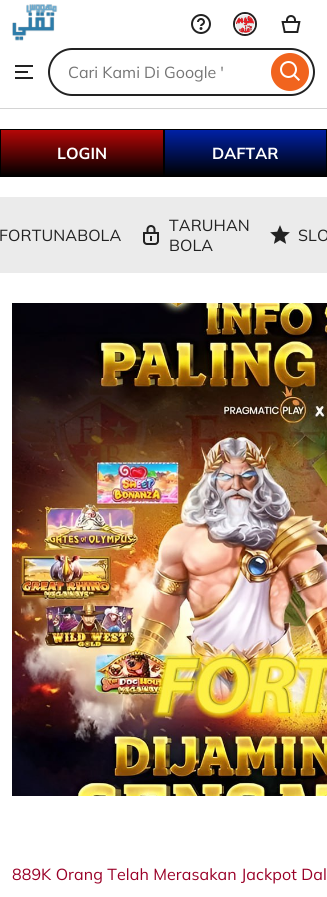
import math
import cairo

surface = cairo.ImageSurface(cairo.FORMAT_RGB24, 327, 897)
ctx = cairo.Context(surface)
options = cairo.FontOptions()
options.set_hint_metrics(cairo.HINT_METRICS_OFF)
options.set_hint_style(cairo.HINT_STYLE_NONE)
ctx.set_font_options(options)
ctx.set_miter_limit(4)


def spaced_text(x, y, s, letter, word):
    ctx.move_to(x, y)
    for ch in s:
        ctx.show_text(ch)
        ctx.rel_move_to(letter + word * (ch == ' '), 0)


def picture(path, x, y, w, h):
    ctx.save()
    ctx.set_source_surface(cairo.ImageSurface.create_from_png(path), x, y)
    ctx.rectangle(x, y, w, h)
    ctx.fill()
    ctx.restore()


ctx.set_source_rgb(1, 1, 1)
ctx.paint()
ctx.set_source_rgb(0.831, 0.831, 0.831)
ctx.rectangle(0, 108, 327, 1)
ctx.fill()
picture("img1.png", 12, 4, 46, 37)
picture("img2.png", 191, 14, 20, 20)
ctx.set_source_rgb(0.918, 0.918, 0.918)
ctx.arc(245, 24, 12, 0, 2 * math.pi)
ctx.fill()
picture("img3.png", 234, 14, 23, 21)
ctx.arc(245, 24, 11, 0, 2 * math.pi)
ctx.set_source_rgb(0.133, 0.133, 0.133)
ctx.stroke()
ctx.arc(245, 24, 9.5, 0, 2 * math.pi)
ctx.set_source_rgb(1, 1, 1)
ctx.set_line_width(1)
ctx.stroke()
picture("img4.png", 281, 15, 20, 18)
picture("img5.png", 15, 65, 18, 14)
ctx.set_source_rgb(0.133, 0.133, 0.133)
ctx.set_fill_rule(cairo.FILL_RULE_EVEN_ODD)
ctx.new_path()
ctx.move_to(72, 48)
ctx.line_to(266, 48)
ctx.line_to(266, 96)
ctx.line_to(72, 96)
ctx.curve_to(59, 96, 48, 85, 48, 72)
ctx.curve_to(48, 59, 59, 48, 72, 48)
ctx.close_path()
ctx.move_to(72, 50)
ctx.line_to(266, 50)
ctx.line_to(266, 94)
ctx.line_to(72, 94)
ctx.curve_to(60, 94, 50, 84, 50, 72)
ctx.curve_to(50, 60, 60, 50, 72, 50)
ctx.close_path()
ctx.fill()
ctx.select_font_face("Mulish")
ctx.set_font_size(16)
ctx.set_source_rgb(0.459, 0.459, 0.459)
ctx.move_to(68, 78)
ctx.show_text("Cari Kami Di Google '")
ctx.set_source_rgb(0.133, 0.133, 0.133)
ctx.new_path()
ctx.move_to(266, 48)
ctx.line_to(291, 48)
ctx.curve_to(304, 48, 315, 59, 315, 72)
ctx.curve_to(315, 85, 304, 96, 291, 96)
ctx.line_to(266, 96)
ctx.close_path()
ctx.move_to(266, 50)
ctx.line_to(291, 50)
ctx.curve_to(303, 50, 313, 60, 313, 72)
ctx.curve_to(313, 84, 303, 94, 291, 94)
ctx.line_to(266, 94)
ctx.close_path()
ctx.fill()
ctx.set_source_rgb(0.945, 0.392, 0.118)
ctx.arc(290, 72, 19, 0, 2 * math.pi)
ctx.fill()
picture("img6.png", 280, 61, 20, 20)
gradient = cairo.LinearGradient(82, 130, 82, 176)
gradient.add_color_stop_rgba(0, 0.71, 0.027, 0.027, 1)
gradient.add_color_stop_rgba(1, 0, 0, 0, 1)
ctx.set_source(gradient)
ctx.rectangle(1, 130, 162, 46)
ctx.fill()
ctx.rectangle(0.5, 129.5, 163, 47)
ctx.set_source_rgb(0, 0, 0)
ctx.stroke()
ctx.select_font_face("Mulish", cairo.FONT_SLANT_NORMAL, cairo.FONT_WEIGHT_BOLD)
ctx.set_source_rgb(1, 1, 1)
ctx.move_to(57, 159)
ctx.show_text("LOGIN")
gradient = cairo.LinearGradient(246, 130, 246, 176)
gradient.add_color_stop_rgba(0, 0, 0.129, 0.651, 1)
gradient.add_color_stop_rgba(1, 0, 0, 0, 1)
ctx.set_source(gradient)
ctx.rectangle(165, 130, 161, 46)
ctx.fill()
ctx.rectangle(164.5, 129.5, 162, 47)
ctx.set_source_rgb(0, 0, 0)
ctx.stroke()
ctx.set_source_rgb(1, 1, 1)
ctx.move_to(212, 159)
ctx.show_text("DAFTAR")
ctx.set_source_rgb(0.918, 0.918, 0.918)
ctx.rectangle(0, 197, 327, 76)
ctx.fill()
ctx.select_font_face("Mulish")
ctx.set_source_rgb(0.133, 0.133, 0.133)
spaced_text(-1, 241, "FORTUNABOLA", 0.1, 0)
picture("img7.png", 143, 225, 16, 20)
spaced_text(169, 231, "TARUHAN", 0.1, 0)
spaced_text(169, 251, "BOLA", 0.1, 0)
picture("img8.png", 270, 225, 20, 19)
spaced_text(298, 241, "SLO", 0.1, 0)
picture("img9.png", 12, 303, 315, 493)
ctx.set_source_rgb(0.604, 0, 0.153)
spaced_text(12, 880, "889K Orang Telah Merasakan Jackpot Dal", 0.1, 0)
surface.write_to_png("page.png")
